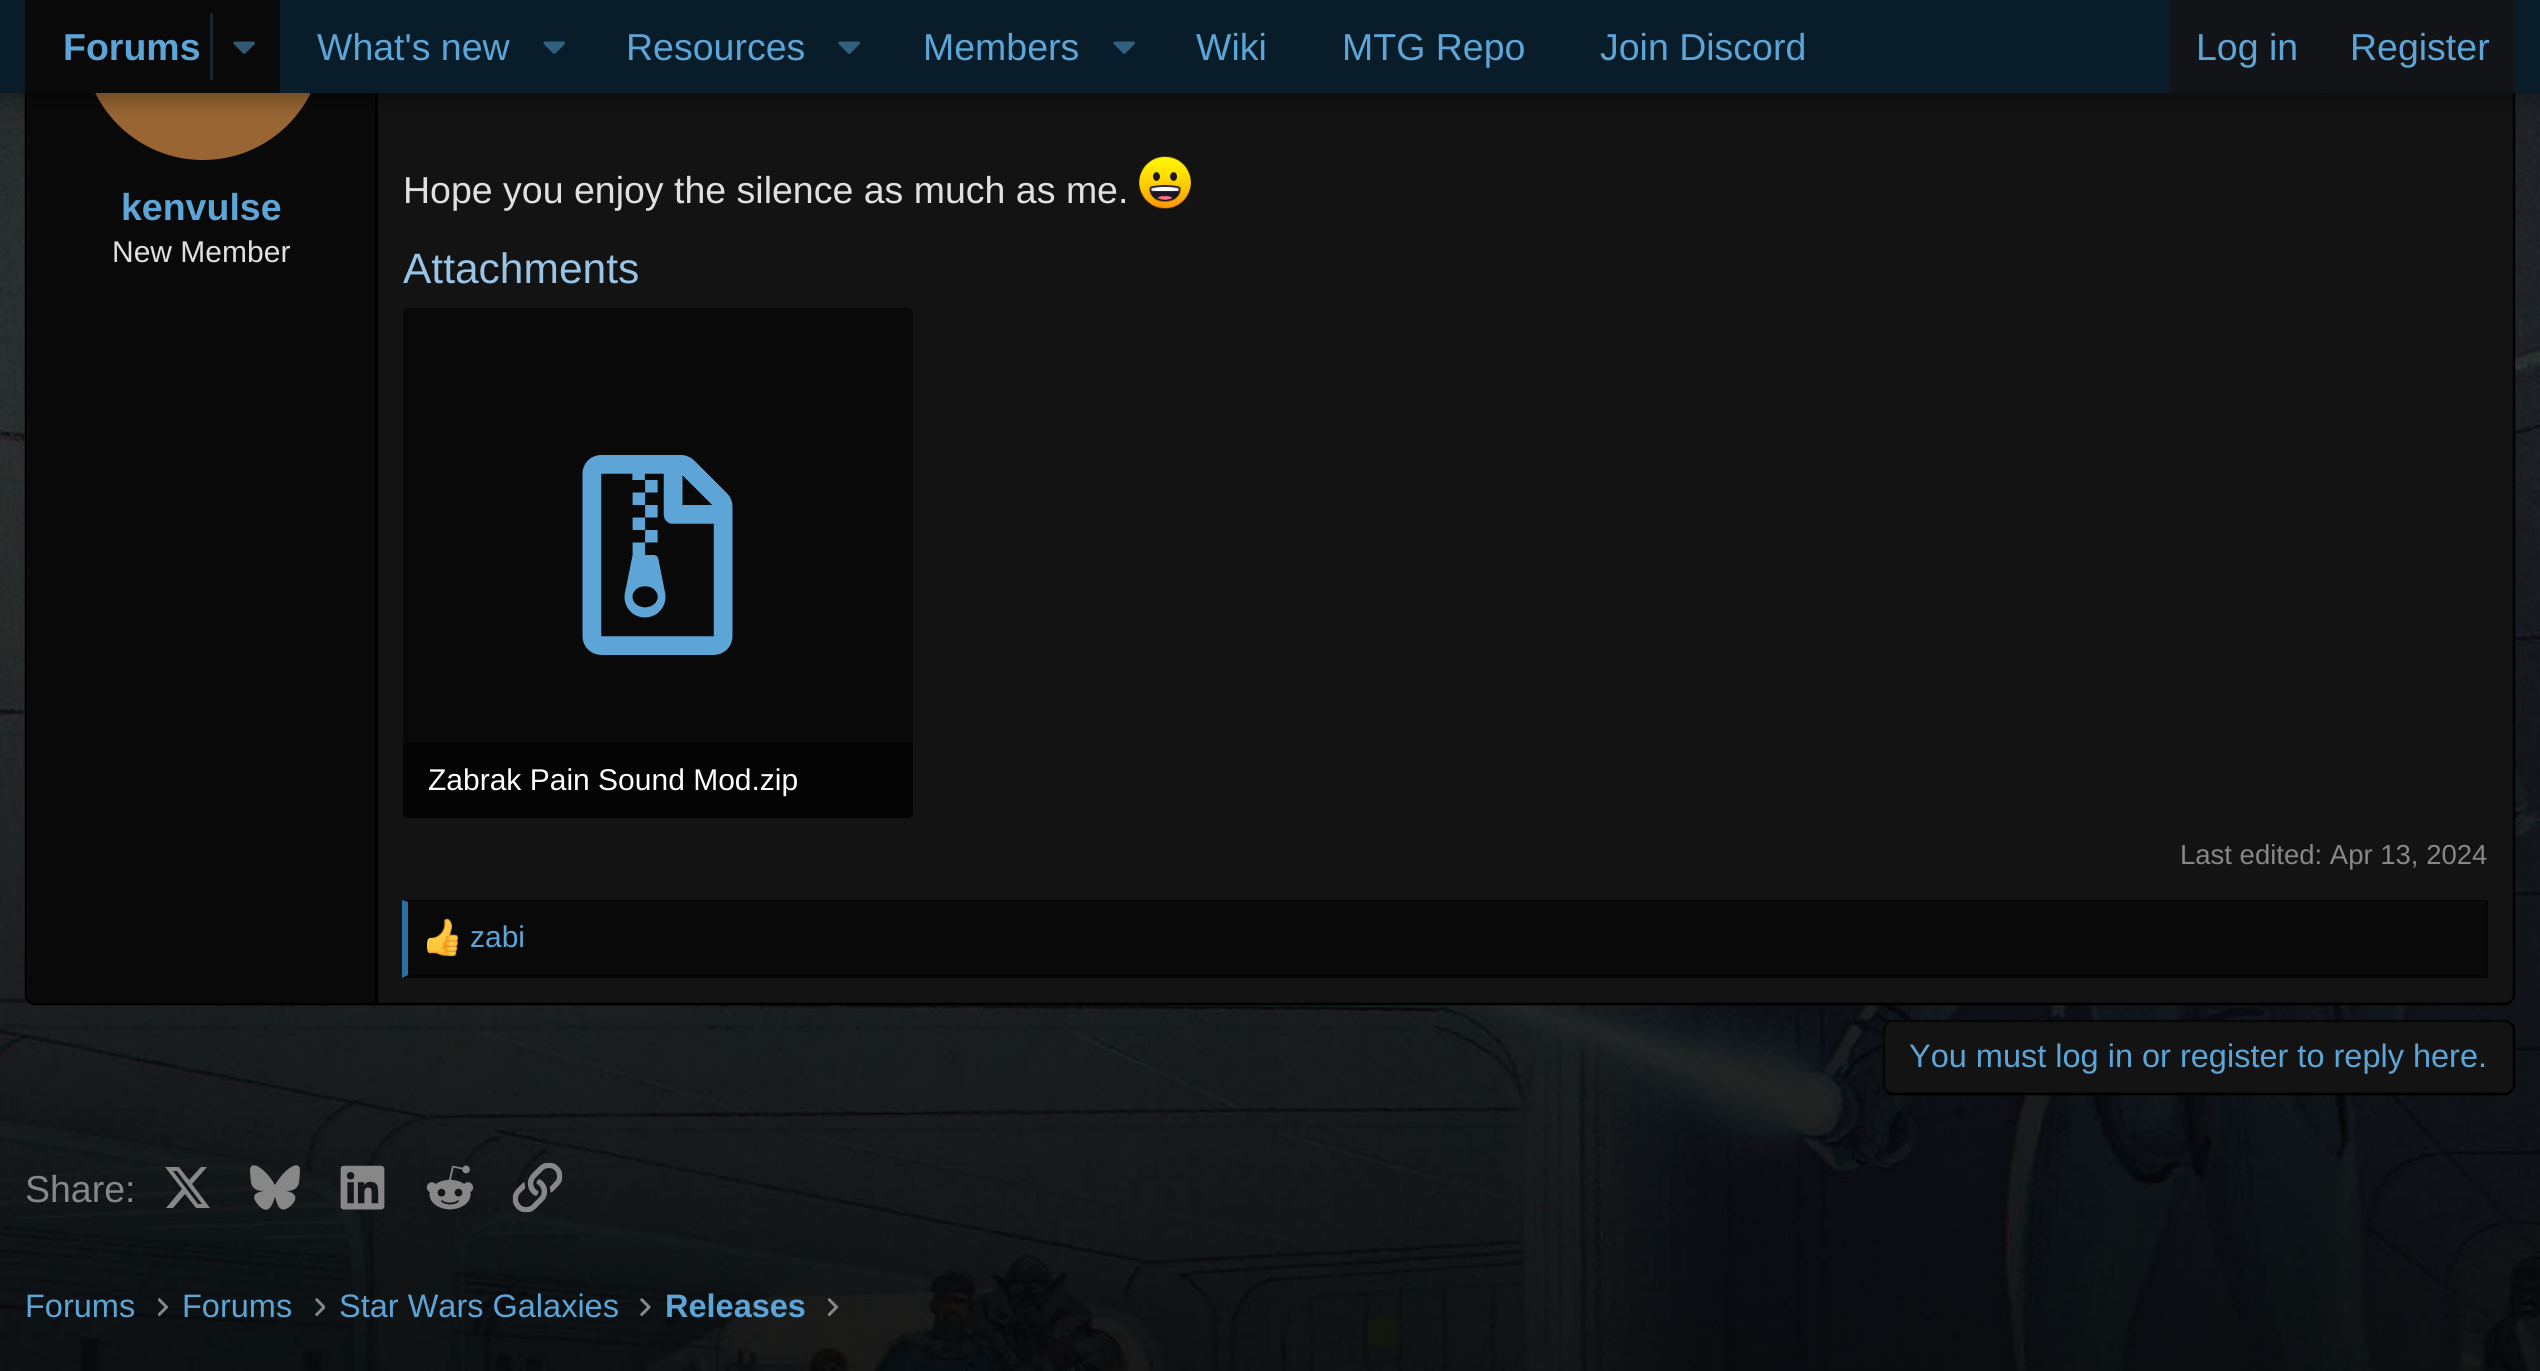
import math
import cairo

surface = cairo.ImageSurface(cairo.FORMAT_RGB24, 2540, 1371)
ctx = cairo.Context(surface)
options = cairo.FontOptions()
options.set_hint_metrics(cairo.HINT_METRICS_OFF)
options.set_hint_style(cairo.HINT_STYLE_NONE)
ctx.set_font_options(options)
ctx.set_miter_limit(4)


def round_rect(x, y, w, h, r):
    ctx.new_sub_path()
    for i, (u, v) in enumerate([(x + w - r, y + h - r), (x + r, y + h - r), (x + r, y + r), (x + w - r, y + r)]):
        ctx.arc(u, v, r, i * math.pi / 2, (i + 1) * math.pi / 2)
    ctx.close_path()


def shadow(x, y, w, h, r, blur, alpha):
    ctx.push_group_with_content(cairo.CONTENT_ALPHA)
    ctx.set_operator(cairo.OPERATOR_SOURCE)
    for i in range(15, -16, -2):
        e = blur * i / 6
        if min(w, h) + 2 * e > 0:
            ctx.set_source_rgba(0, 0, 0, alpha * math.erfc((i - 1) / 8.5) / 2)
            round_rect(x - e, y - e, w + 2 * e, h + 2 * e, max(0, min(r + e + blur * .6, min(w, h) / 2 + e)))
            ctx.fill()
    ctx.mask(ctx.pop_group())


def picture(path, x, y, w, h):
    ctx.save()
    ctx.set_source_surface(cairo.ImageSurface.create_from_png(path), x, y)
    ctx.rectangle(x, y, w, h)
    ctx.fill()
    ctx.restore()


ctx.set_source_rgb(1, 1, 1)
ctx.paint()
picture("img3.png", 0, 93, 2540, 1278)
ctx.set_source_rgb(0.078, 0.078, 0.078)
round_rect(25, -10, 2490, 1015, 10)
ctx.fill()
ctx.new_path()
ctx.move_to(2511, -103.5)
ctx.curve_to(2513, -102, 2514, -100, 2514, -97.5)
ctx.line_to(2514, 995)
ctx.curve_to(2514, 997.5, 2513, 999.5, 2511, 1001)
ctx.curve_to(2509.5, 1003, 2507.5, 1004, 2505, 1004)
ctx.line_to(35, 1004)
ctx.curve_to(32.5, 1004, 30.5, 1003, 29, 1001)
ctx.curve_to(27, 999.5, 26, 997.5, 26, 995)
ctx.line_to(26, -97.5)
ctx.curve_to(26, -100, 27, -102, 29, -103.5)
ctx.set_source_rgb(0, 0, 0)
ctx.set_line_width(2.5)
ctx.stroke()
ctx.set_source_rgb(0.039, 0.039, 0.039)
ctx.new_path()
ctx.move_to(36, -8)
ctx.line_to(378, -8)
ctx.line_to(378, 1003)
ctx.line_to(36, 1003)
ctx.curve_to(31.5, 1003, 28, 999.5, 28, 995)
ctx.line_to(28, 0)
ctx.curve_to(28, -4.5, 31.5, -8, 36, -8)
ctx.close_path()
ctx.fill()
ctx.set_source_rgb(0, 0, 0)
ctx.rectangle(375, 93, 3, 910)
ctx.fill()
ctx.set_source_rgb(0.6, 0.4, 0.2)
ctx.arc(203, 40, 120, 0, 2 * math.pi)
ctx.fill()
ctx.set_source_rgb(0, 0, 0)
shadow(-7, -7, 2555, 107, 0, 10, 0.3)
ctx.set_source_rgb(0.039, 0.11, 0.161)
ctx.rectangle(0, 0, 2540, 93)
ctx.fill()
ctx.set_source_rgb(0.039, 0.039, 0.039)
ctx.rectangle(25, 0, 255, 93)
ctx.fill()
ctx.select_font_face("Liberation Sans", cairo.FONT_SLANT_NORMAL, cairo.FONT_WEIGHT_BOLD)
ctx.set_font_size(37.5)
ctx.set_source_rgb(0.361, 0.647, 0.839)
ctx.move_to(63, 60)
ctx.show_text("Forums")
ctx.set_source_rgb(0.094, 0.145, 0.18)
ctx.rectangle(210, 13, 3, 67)
ctx.fill()
picture("img1.png", 233, 41, 22, 13)
ctx.select_font_face("Liberation Sans")
ctx.set_source_rgb(0.361, 0.647, 0.839)
ctx.move_to(317, 60)
ctx.show_text("What's new")
picture("img2.png", 543, 41, 22, 13)
ctx.move_to(626, 60)
ctx.show_text("Resources")
picture("img2.png", 838, 41, 22, 13)
ctx.move_to(923, 60)
ctx.show_text("Members")
picture("img2.png", 1113, 41, 22, 13)
ctx.move_to(1196, 60)
ctx.show_text("Wiki")
ctx.move_to(1342, 60)
ctx.show_text("MTG Repo")
ctx.move_to(1600, 60)
ctx.show_text("Join Discord")
ctx.set_source_rgb(0.075, 0.082, 0.09)
ctx.rectangle(2170, 0, 345, 93)
ctx.fill()
ctx.set_source_rgb(0.361, 0.647, 0.839)
ctx.move_to(2196, 60)
ctx.show_text("Log in")
ctx.set_source_rgb(0.078, 0.078, 0.078)
ctx.rectangle(2323, 0, 3, 93)
ctx.fill()
ctx.set_source_rgb(0.361, 0.647, 0.839)
ctx.move_to(2350, 60)
ctx.show_text("Register")
ctx.select_font_face("Liberation Sans", cairo.FONT_SLANT_NORMAL, cairo.FONT_WEIGHT_BOLD)
ctx.move_to(121, 220)
ctx.show_text("kenvulse")
ctx.select_font_face("Liberation Sans")
ctx.set_font_size(30)
ctx.set_source_rgb(0.878, 0.878, 0.878)
ctx.move_to(112, 262)
ctx.show_text("New Member")
ctx.set_font_size(37.5)
ctx.move_to(403, 203)
ctx.show_text("Hope you enjoy the silence as much as me.")
picture("img4.png", 1139, 156, 52, 53)
ctx.set_font_size(42.5)
ctx.set_source_rgb(0.6, 0.769, 0.902)
ctx.move_to(403, 283)
ctx.show_text("Attachments")
ctx.set_source_rgb(0.039, 0.039, 0.039)
round_rect(403, 308, 510, 510, 5)
ctx.fill()
picture("img5.png", 582, 455, 151, 200)
ctx.set_source_rgba(0, 0, 0, 0.5)
ctx.new_path()
ctx.move_to(403, 743)
ctx.line_to(913, 743)
ctx.line_to(913, 813)
ctx.curve_to(913, 816, 911, 818, 908, 818)
ctx.line_to(408, 818)
ctx.curve_to(405, 818, 403, 816, 403, 813)
ctx.close_path()
ctx.fill()
ctx.set_font_size(30)
ctx.set_source_rgb(1, 1, 1)
ctx.move_to(428, 790)
ctx.show_text("Zabrak Pain Sound Mod.zip")
ctx.set_font_size(27.5)
ctx.set_source_rgb(0.529, 0.529, 0.529)
ctx.move_to(2180, 864)
ctx.show_text("Last edited: Apr 13, 2024")
ctx.set_source_rgb(0.039, 0.039, 0.039)
ctx.rectangle(408, 903, 2077, 72)
ctx.fill()
ctx.set_source_rgb(0.02, 0.02, 0.02)
ctx.new_path()
ctx.move_to(402, 900)
ctx.line_to(2488, 900)
ctx.line_to(2485, 902)
ctx.line_to(408, 902)
ctx.close_path()
ctx.fill()
ctx.rectangle(2485, 900, 3, 78)
ctx.fill()
ctx.new_path()
ctx.move_to(2488, 978)
ctx.line_to(402, 978)
ctx.line_to(408, 975)
ctx.line_to(2485, 975)
ctx.close_path()
ctx.fill()
ctx.set_source_rgb(0.161, 0.439, 0.639)
ctx.new_path()
ctx.move_to(402, 978)
ctx.line_to(402, 900)
ctx.line_to(408, 902)
ctx.line_to(408, 975)
ctx.close_path()
ctx.fill()
picture("img6.png", 427, 918, 31, 39)
ctx.set_font_size(30)
ctx.set_source_rgb(0.361, 0.647, 0.839)
ctx.move_to(470, 947)
ctx.show_text("zabi")
ctx.set_source_rgb(0.078, 0.078, 0.078)
round_rect(1883, 1020, 632, 75, 10)
ctx.fill()
ctx.new_path()
ctx.move_to(2511, 1024)
ctx.curve_to(2513, 1025.5, 2514, 1027.5, 2514, 1030)
ctx.line_to(2514, 1085)
ctx.curve_to(2514, 1087.5, 2513, 1089.5, 2511, 1091)
ctx.curve_to(2509.5, 1093, 2507.5, 1094, 2505, 1094)
ctx.line_to(1892.5, 1094)
ctx.curve_to(1890, 1094, 1888, 1093, 1886.5, 1091)
ctx.set_source_rgb(0, 0, 0)
ctx.stroke()
ctx.new_path()
ctx.move_to(1886.5, 1091)
ctx.curve_to(1884.5, 1089.5, 1884, 1087.5, 1884, 1085)
ctx.line_to(1884, 1030)
ctx.curve_to(1884, 1027.5, 1884.5, 1025.5, 1886.5, 1024)
ctx.curve_to(1888, 1022, 1890, 1021, 1892.5, 1021)
ctx.line_to(2505, 1021)
ctx.curve_to(2507.5, 1021, 2509.5, 1022, 2511, 1024)
ctx.set_source_rgb(0.031, 0.031, 0.031)
ctx.stroke()
ctx.set_font_size(32.5)
ctx.set_source_rgb(0.361, 0.647, 0.839)
ctx.move_to(1909, 1067)
ctx.show_text("You must log in or register to reply here.")
ctx.set_font_size(37.5)
ctx.set_source_rgb(0.529, 0.529, 0.529)
ctx.move_to(25, 1202)
ctx.show_text("Share:")
ctx.new_path()
ctx.move_to(201, 1167)
ctx.line_to(207, 1167)
ctx.line_to(192, 1184)
ctx.line_to(210, 1208)
ctx.line_to(196, 1208)
ctx.line_to(185, 1194)
ctx.line_to(173, 1208)
ctx.line_to(166, 1208)
ctx.line_to(182, 1189)
ctx.line_to(165, 1167)
ctx.line_to(179, 1167)
ctx.line_to(189, 1180)
ctx.close_path()
ctx.move_to(198, 1204)
ctx.line_to(202, 1204)
ctx.line_to(177, 1171)
ctx.line_to(173, 1171)
ctx.close_path()
ctx.fill()
picture("img7.png", 250, 1165, 50, 45)
picture("img8.png", 340, 1165, 45, 45)
picture("img9.png", 426, 1165, 48, 45)
picture("img10.png", 512, 1162, 51, 51)
ctx.set_font_size(32.5)
ctx.set_source_rgb(0.361, 0.647, 0.839)
ctx.move_to(25, 1317)
ctx.show_text("Forums")
picture("img11.png", 158, 1298, 10, 19)
ctx.move_to(182, 1317)
ctx.show_text("Forums")
picture("img12.png", 315, 1298, 10, 19)
ctx.move_to(339, 1317)
ctx.show_text("Star Wars Galaxies")
picture("img13.png", 640, 1298, 11, 19)
ctx.select_font_face("Liberation Sans", cairo.FONT_SLANT_NORMAL, cairo.FONT_WEIGHT_BOLD)
ctx.move_to(665, 1317)
ctx.show_text("Releases")
picture("img14.png", 828, 1298, 11, 19)
surface.write_to_png("page.png")
